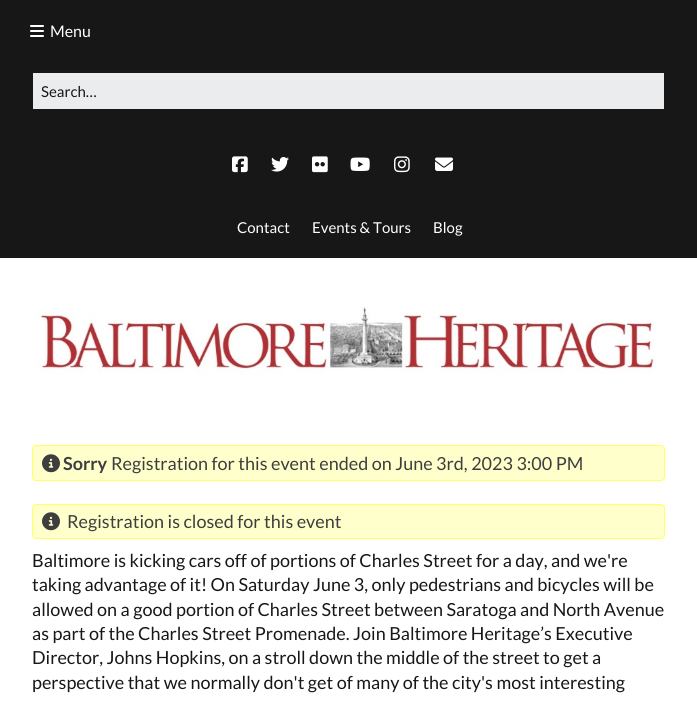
import math
import cairo

surface = cairo.ImageSurface(cairo.FORMAT_RGB24, 697, 701)
ctx = cairo.Context(surface)
options = cairo.FontOptions()
options.set_hint_metrics(cairo.HINT_METRICS_OFF)
options.set_hint_style(cairo.HINT_STYLE_NONE)
ctx.set_font_options(options)
ctx.set_miter_limit(4)


def round_rect(x, y, w, h, r):
    ctx.new_sub_path()
    for i, (u, v) in enumerate([(x + w - r, y + h - r), (x + r, y + h - r), (x + r, y + r), (x + w - r, y + r)]):
        ctx.arc(u, v, r, i * math.pi / 2, (i + 1) * math.pi / 2)
    ctx.close_path()


def picture(path, x, y, w, h):
    ctx.save()
    ctx.set_source_surface(cairo.ImageSurface.create_from_png(path), x, y)
    ctx.rectangle(x, y, w, h)
    ctx.fill()
    ctx.restore()


ctx.set_source_rgb(1, 1, 1)
ctx.paint()
ctx.set_source_rgb(0.09, 0.09, 0.09)
ctx.rectangle(0, 0, 697, 258)
ctx.fill()
picture("img1.png", 30, 25, 14, 12)
ctx.select_font_face("Lato")
ctx.set_font_size(16)
ctx.set_source_rgb(1, 1, 1)
ctx.move_to(50, 37)
ctx.show_text("Menu")
picture("img2.png", 33, 307, 624, 67)
ctx.set_source_rgb(0.918, 0.925, 0.933)
ctx.rectangle(33, 73, 631, 36)
ctx.fill()
ctx.set_font_size(15)
ctx.set_source_rgb(0.09, 0.09, 0.09)
ctx.move_to(41, 97)
ctx.show_text("Search…")
picture("img3.png", 232, 156, 16, 17)
picture("img4.png", 271, 157, 18, 15)
picture("img5.png", 312, 156, 16, 17)
picture("img6.png", 350, 157, 20, 14)
picture("img7.png", 394, 156, 16, 17)
picture("img8.png", 435, 157, 18, 14)
ctx.set_source_rgb(1, 1, 1)
ctx.move_to(237, 233)
ctx.show_text("Contact")
ctx.move_to(312, 233)
ctx.show_text("Events & Tours")
ctx.move_to(433, 233)
ctx.show_text("Blog")
ctx.set_source_rgb(1, 1, 0.8)
round_rect(32.5, 445.5, 632, 35, 3.5)
ctx.fill_preserve()
ctx.set_source_rgb(1, 1, 0.4)
ctx.set_line_width(1)
ctx.stroke()
picture("img9.png", 42, 454, 18, 19)
ctx.select_font_face("Lato", cairo.FONT_SLANT_NORMAL, cairo.FONT_WEIGHT_BOLD)
ctx.set_font_size(18)
ctx.set_source_rgb(0.243, 0.243, 0.243)
ctx.move_to(63, 470)
ctx.show_text("Sorry")
ctx.select_font_face("Lato")
ctx.move_to(111, 470)
ctx.show_text("Registration for this event ended on June 3rd, 2023 3:00 PM")
ctx.set_source_rgb(1, 1, 0.8)
round_rect(32.5, 504.5, 632, 34, 3.5)
ctx.fill_preserve()
ctx.set_source_rgb(1, 1, 0.4)
ctx.stroke()
picture("img9.png", 42, 512, 18, 19)
ctx.set_source_rgb(0.243, 0.243, 0.243)
ctx.move_to(67, 528)
ctx.show_text("Registration is closed for this event")
ctx.set_source_rgb(0.09, 0.09, 0.09)
ctx.move_to(32, 567)
ctx.show_text("Baltimore is kicking cars off of portions of Charles Street for a day, and we're")
ctx.move_to(32, 591)
ctx.show_text("taking advantage of it! On Saturday June 3, only pedestrians and bicycles will be")
ctx.move_to(32, 616)
ctx.show_text("allowed on a good portion of Charles Street between Saratoga and North Avenue")
ctx.move_to(32, 640)
ctx.show_text("as part of the Charles Street Promenade. Join Baltimore Heritage’s Executive")
ctx.move_to(32, 664)
ctx.show_text("Director, Johns Hopkins, on a stroll down the middle of the street to get a")
ctx.move_to(32, 689)
ctx.show_text("perspective that we normally don't get of many of the city's most interesting")
surface.write_to_png("page.png")
